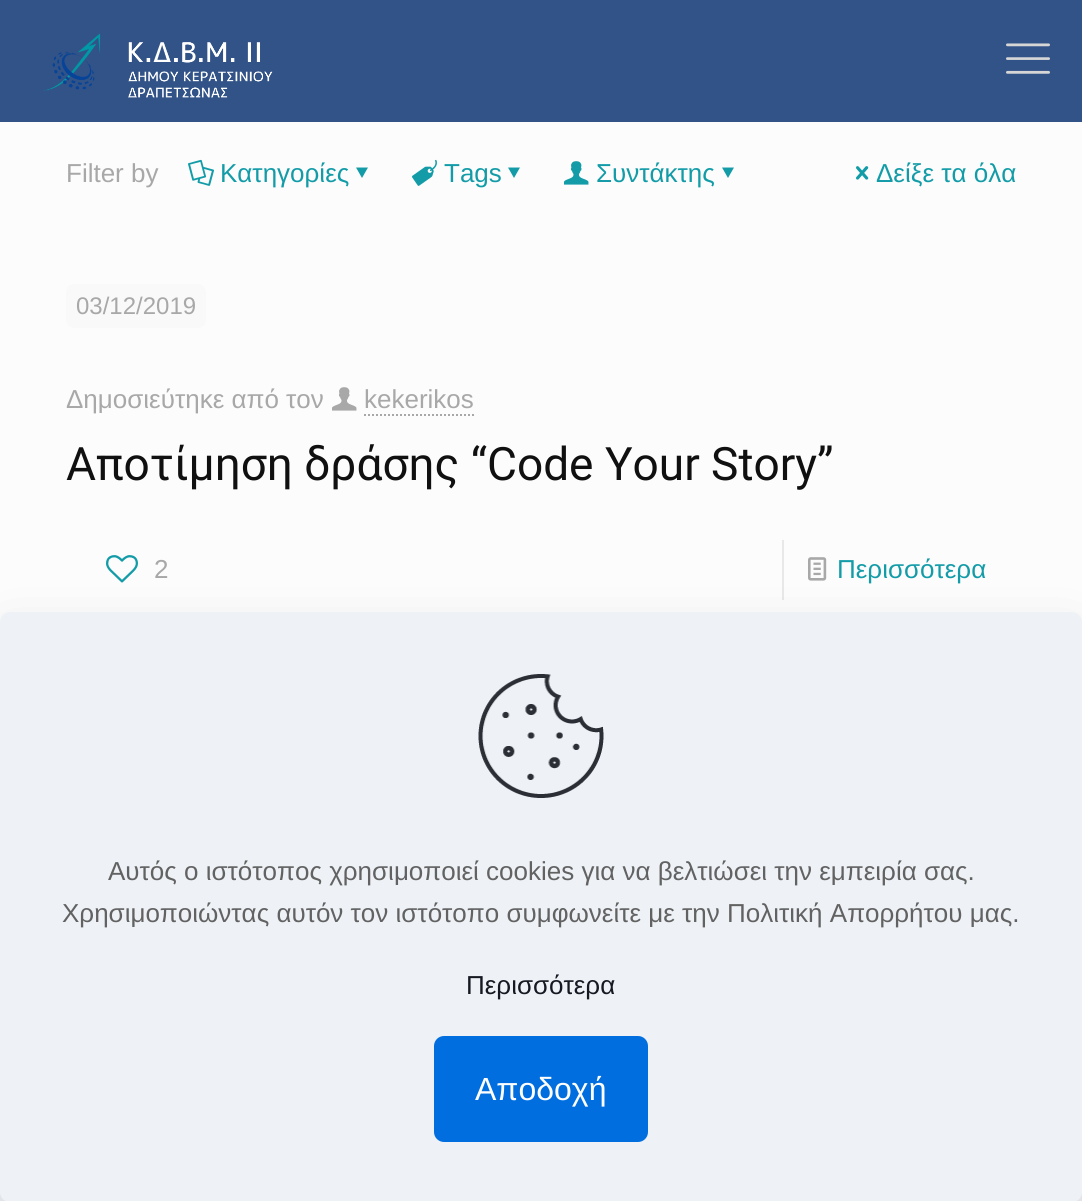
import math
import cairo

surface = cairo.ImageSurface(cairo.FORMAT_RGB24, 1082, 1201)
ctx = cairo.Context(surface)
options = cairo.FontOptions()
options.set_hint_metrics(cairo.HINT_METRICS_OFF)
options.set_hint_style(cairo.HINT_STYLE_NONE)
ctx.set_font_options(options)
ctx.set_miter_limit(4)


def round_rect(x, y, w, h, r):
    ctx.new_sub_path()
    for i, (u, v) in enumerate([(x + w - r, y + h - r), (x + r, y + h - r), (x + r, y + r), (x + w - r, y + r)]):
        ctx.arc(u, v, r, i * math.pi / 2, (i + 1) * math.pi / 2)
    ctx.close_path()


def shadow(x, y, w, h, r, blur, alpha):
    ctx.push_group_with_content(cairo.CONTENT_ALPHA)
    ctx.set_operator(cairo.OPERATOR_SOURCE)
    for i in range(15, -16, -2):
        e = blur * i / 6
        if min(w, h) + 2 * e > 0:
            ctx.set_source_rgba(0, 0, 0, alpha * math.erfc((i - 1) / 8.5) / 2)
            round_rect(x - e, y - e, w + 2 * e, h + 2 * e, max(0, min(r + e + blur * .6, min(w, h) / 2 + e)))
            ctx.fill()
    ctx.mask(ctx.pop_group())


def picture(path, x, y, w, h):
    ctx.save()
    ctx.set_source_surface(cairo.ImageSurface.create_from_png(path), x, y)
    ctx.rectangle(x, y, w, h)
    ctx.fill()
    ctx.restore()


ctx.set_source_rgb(0.988, 0.988, 0.988)
ctx.paint()
ctx.set_source_rgb(0.196, 0.325, 0.533)
ctx.rectangle(0, 0, 1082, 122)
ctx.fill()
picture("img1.png", 43, 33, 230, 65)
picture("img2.png", 1006, 43, 44, 31)
ctx.select_font_face("Liberation Sans")
ctx.set_font_size(26)
ctx.set_source_rgb(0.659, 0.659, 0.659)
ctx.move_to(66, 182)
ctx.show_text("Filter by")
picture("img3.png", 188, 159, 26, 27)
ctx.set_source_rgb(0.075, 0.612, 0.659)
ctx.move_to(220, 182)
ctx.show_text("Κατηγορίες")
ctx.new_path()
ctx.move_to(368, 167.5)
ctx.line_to(362, 178)
ctx.line_to(356, 167.5)
ctx.close_path()
ctx.fill()
picture("img4.png", 412, 159, 25, 27)
ctx.move_to(444, 182)
ctx.show_text("Tags")
ctx.new_path()
ctx.move_to(520, 167.5)
ctx.line_to(514, 178)
ctx.line_to(508, 167.5)
ctx.close_path()
ctx.fill()
picture("img5.png", 564, 161, 25, 24)
ctx.move_to(596, 182)
ctx.show_text("Συντάκτης")
ctx.new_path()
ctx.move_to(734, 167.5)
ctx.line_to(728, 178)
ctx.line_to(722, 167.5)
ctx.close_path()
ctx.fill()
picture("img6.png", 856, 166, 13, 14)
ctx.move_to(876, 182)
ctx.show_text("Δείξε τα όλα")
ctx.set_source_rgb(0.973, 0.973, 0.973)
round_rect(66, 284, 140, 44, 8)
ctx.fill()
ctx.set_font_size(24)
ctx.set_source_rgb(0.659, 0.659, 0.659)
ctx.move_to(76, 314)
ctx.show_text("03/12/2019")
ctx.set_font_size(26)
ctx.move_to(66, 408)
ctx.show_text("Δημοσιεύτηκε από τον")
picture("img7.png", 332, 387, 25, 24)
ctx.move_to(364, 408)
ctx.show_text("kekerikos")
ctx.new_path()
ctx.move_to(364, 415)
ctx.line_to(474, 415)
ctx.set_dash([2, 2])
ctx.stroke()
ctx.select_font_face("Roboto")
ctx.set_font_size(46)
ctx.set_source_rgb(0.063, 0.063, 0.063)
ctx.move_to(66, 480)
ctx.show_text("Αποτίμηση δράσης “Code Your Story”")
picture("img8.png", 106, 555, 32, 28)
ctx.select_font_face("Liberation Sans")
ctx.set_font_size(26)
ctx.set_source_rgb(0.659, 0.659, 0.659)
ctx.move_to(154, 578)
ctx.show_text("2")
ctx.set_source_rgb(0.91, 0.91, 0.91)
ctx.rectangle(782, 540, 2, 60)
ctx.fill()
picture("img9.png", 808, 557, 19, 24)
ctx.set_source_rgb(0.075, 0.612, 0.659)
ctx.move_to(837, 578)
ctx.show_text("Περισσότερα")
ctx.set_source_rgb(0.949, 0.953, 0.961)
ctx.rectangle(0, 1192, 1082, 9)
ctx.fill()
ctx.set_source_rgb(0.004, 0.027, 0.153)
shadow(0, 642, 1082, 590, 10, 30, 0.13)
ctx.set_source_rgb(0.933, 0.949, 0.961)
round_rect(0, 612, 1082, 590, 10)
ctx.fill()
picture("img10.png", 478, 674, 126, 124)
ctx.set_source_rgb(0.384, 0.384, 0.384)
ctx.move_to(108, 880)
ctx.show_text("Αυτός ο ιστότοπος χρησιμοποιεί cookies για να βελτιώσει την εμπειρία σας.")
ctx.move_to(62, 922)
ctx.show_text("Χρησιμοποιώντας αυτόν τον ιστότοπο συμφωνείτε με την Πολιτική Απορρήτου μας.")
ctx.set_source_rgb(0.086, 0.098, 0.133)
ctx.move_to(466, 994)
ctx.show_text("Περισσότερα")
ctx.set_source_rgb(0, 0.431, 0.875)
round_rect(434, 1036, 214, 106, 10)
ctx.fill()
ctx.set_font_size(32)
ctx.set_source_rgb(1, 1, 1)
ctx.move_to(475, 1100)
ctx.show_text("Αποδοχή")
surface.write_to_png("page.png")
